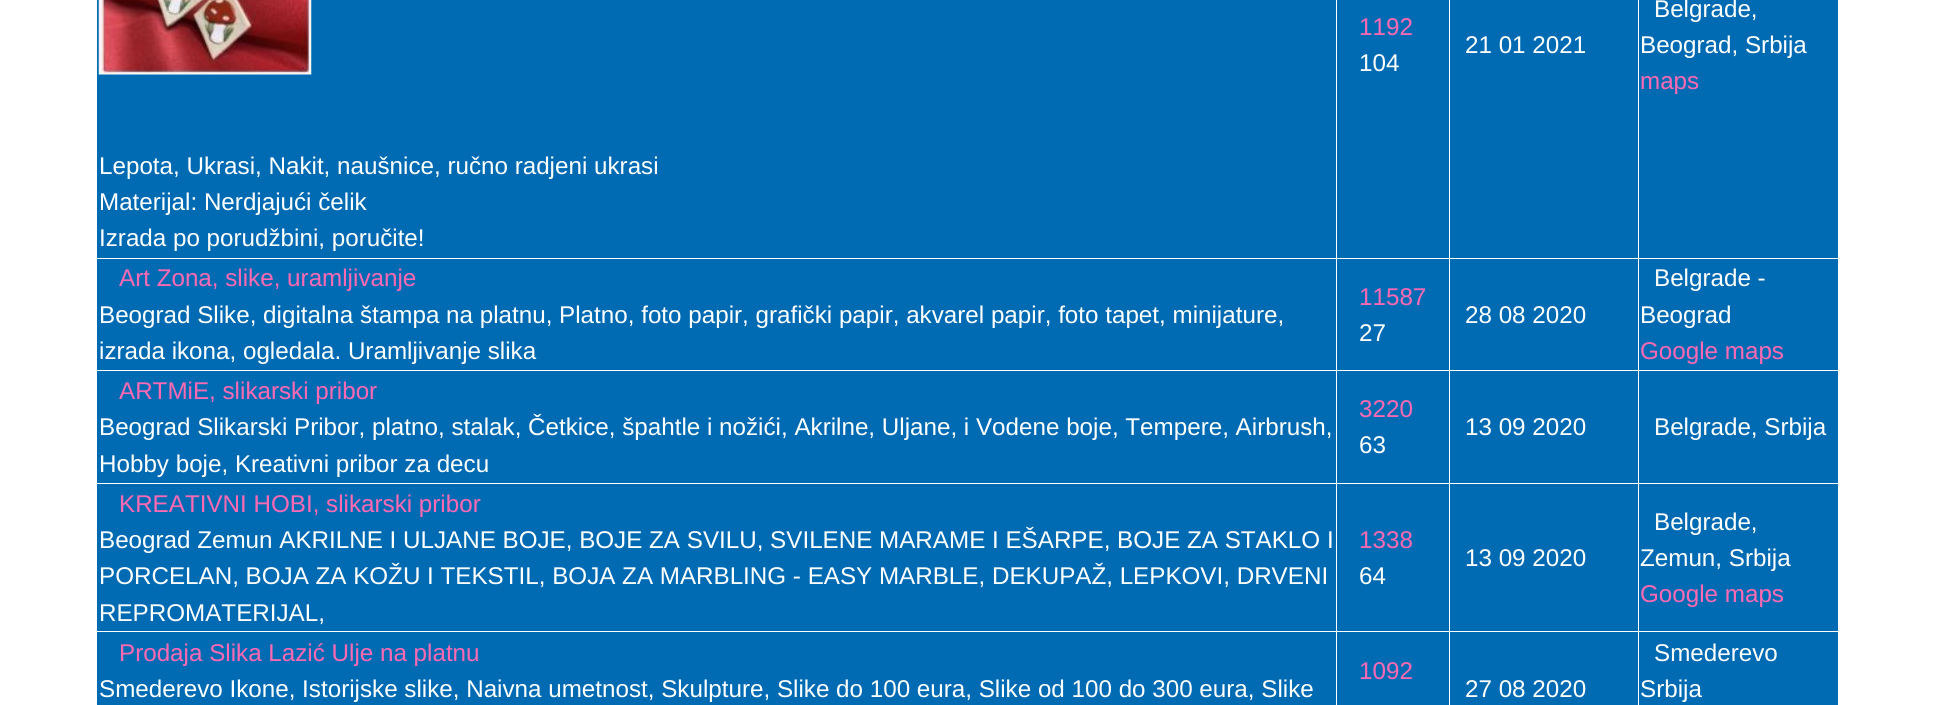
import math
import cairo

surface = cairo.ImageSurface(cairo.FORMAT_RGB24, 1934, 705)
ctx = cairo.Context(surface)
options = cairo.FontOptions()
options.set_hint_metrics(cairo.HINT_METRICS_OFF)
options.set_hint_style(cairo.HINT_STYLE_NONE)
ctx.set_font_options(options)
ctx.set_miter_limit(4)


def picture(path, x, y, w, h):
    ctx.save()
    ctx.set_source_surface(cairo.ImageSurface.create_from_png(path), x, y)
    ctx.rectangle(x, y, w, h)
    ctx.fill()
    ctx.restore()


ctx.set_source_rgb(1, 1, 1)
ctx.paint()
ctx.set_source_rgb(0, 0.42, 0.702)
ctx.rectangle(97, 0, 1741, 705)
ctx.fill()
ctx.set_source_rgb(1, 1, 1)
ctx.rectangle(1638, 258, 201, 1)
ctx.fill()
ctx.rectangle(1638, 370, 201, 1)
ctx.fill()
ctx.rectangle(1638, 483, 201, 1)
ctx.fill()
ctx.rectangle(1638, 631, 201, 1)
ctx.fill()
ctx.rectangle(1638, 631, 1, 74)
ctx.fill()
ctx.rectangle(1449, 631, 190, 1)
ctx.fill()
ctx.rectangle(1638, 483, 1, 150)
ctx.fill()
ctx.rectangle(1449, 483, 190, 1)
ctx.fill()
ctx.rectangle(1638, 370, 1, 114)
ctx.fill()
ctx.rectangle(1449, 370, 190, 1)
ctx.fill()
ctx.rectangle(1638, 258, 1, 113)
ctx.fill()
ctx.rectangle(1449, 258, 190, 1)
ctx.fill()
ctx.rectangle(1449, 631, 1, 74)
ctx.fill()
ctx.rectangle(1336, 631, 114, 1)
ctx.fill()
ctx.rectangle(1449, 483, 1, 150)
ctx.fill()
ctx.rectangle(1336, 483, 114, 1)
ctx.fill()
ctx.rectangle(1449, 370, 1, 114)
ctx.fill()
ctx.rectangle(1336, 370, 114, 1)
ctx.fill()
ctx.rectangle(1449, 258, 1, 113)
ctx.fill()
ctx.rectangle(1336, 258, 114, 1)
ctx.fill()
ctx.rectangle(1336, 631, 1, 74)
ctx.fill()
ctx.rectangle(96, 631, 1242, 1)
ctx.fill()
ctx.rectangle(1336, 483, 1, 150)
ctx.fill()
ctx.rectangle(96, 483, 1242, 1)
ctx.fill()
ctx.rectangle(1336, 370, 1, 114)
ctx.fill()
ctx.rectangle(96, 370, 1242, 1)
ctx.fill()
ctx.rectangle(1336, 258, 1, 113)
ctx.fill()
ctx.rectangle(96, 258, 1242, 1)
ctx.fill()
ctx.rectangle(1336, 0, 1, 259)
ctx.fill()
ctx.select_font_face("Liberation Sans")
ctx.set_font_size(24.2)
ctx.set_source_rgb(1, 0.412, 0.706)
ctx.move_to(1359, 35)
ctx.show_text("1192")
ctx.set_source_rgb(1, 1, 1)
ctx.move_to(1359, 71)
ctx.show_text("104")
ctx.rectangle(1449, 0, 1, 259)
ctx.fill()
ctx.move_to(1465, 53)
ctx.show_text("21 01 2021")
ctx.rectangle(1638, 0, 1, 259)
ctx.fill()
ctx.move_to(1654, 17)
ctx.show_text("Belgrade,")
ctx.move_to(1640, 53)
ctx.show_text("Beograd, Srbija")
ctx.set_source_rgb(1, 0.412, 0.706)
ctx.move_to(1640, 89)
ctx.show_text("maps")
picture("img1.png", 98, 0, 214, 75)
ctx.set_source_rgb(1, 1, 1)
ctx.move_to(99, 174)
ctx.show_text("Lepota, Ukrasi, Nakit, naušnice, ručno radjeni ukrasi")
ctx.move_to(99, 210)
ctx.show_text("Materijal: Nerdjajući čelik")
ctx.move_to(99, 246)
ctx.show_text("Izrada po porudžbini, poručite!")
ctx.set_source_rgb(1, 0.412, 0.706)
ctx.move_to(119, 286)
ctx.show_text("Art Zona, slike, uramljivanje")
ctx.set_source_rgb(1, 1, 1)
ctx.move_to(99, 323)
ctx.show_text("Beograd Slike, digitalna štampa na platnu, Platno, foto papir, grafički papir, akvarel papir, foto tapet, minijature,")
ctx.move_to(99, 359)
ctx.show_text("izrada ikona, ogledala. Uramljivanje slika")
ctx.set_source_rgb(1, 0.412, 0.706)
ctx.move_to(1359, 305)
ctx.show_text("11587")
ctx.set_source_rgb(1, 1, 1)
ctx.move_to(1359, 341)
ctx.show_text("27")
ctx.move_to(1465, 323)
ctx.show_text("28 08 2020")
ctx.move_to(1654, 286)
ctx.show_text("Belgrade -")
ctx.move_to(1640, 323)
ctx.show_text("Beograd")
ctx.set_source_rgb(1, 0.412, 0.706)
ctx.move_to(1640, 359)
ctx.show_text("Google maps")
ctx.move_to(119, 399)
ctx.show_text("ARTMiE, slikarski pribor")
ctx.set_source_rgb(1, 1, 1)
ctx.move_to(99, 435)
ctx.show_text("Beograd Slikarski Pribor, platno, stalak, Četkice, špahtle i nožići, Akrilne, Uljane, i Vodene boje, Tempere, Airbrush,")
ctx.move_to(99, 472)
ctx.show_text("Hobby boje, Kreativni pribor za decu")
ctx.set_source_rgb(1, 0.412, 0.706)
ctx.move_to(1359, 417)
ctx.show_text("3220")
ctx.set_source_rgb(1, 1, 1)
ctx.move_to(1359, 453)
ctx.show_text("63")
ctx.move_to(1465, 435)
ctx.show_text("13 09 2020")
ctx.move_to(1654, 435)
ctx.show_text("Belgrade, Srbija")
ctx.set_source_rgb(1, 0.412, 0.706)
ctx.move_to(119, 512)
ctx.show_text("KREATIVNI HOBI, slikarski pribor")
ctx.set_source_rgb(1, 1, 1)
ctx.move_to(99, 548)
ctx.show_text("Beograd Zemun AKRILNE I ULJANE BOJE, BOJE ZA SVILU, SVILENE MARAME I EŠARPE, BOJE ZA STAKLO I")
ctx.move_to(99, 584)
ctx.show_text("PORCELAN, BOJA ZA KOŽU I TEKSTIL, BOJA ZA MARBLING - EASY MARBLE, DEKUPAŽ, LEPKOVI, DRVENI")
ctx.move_to(99, 621)
ctx.show_text("REPROMATERIJAL,")
ctx.set_source_rgb(1, 0.412, 0.706)
ctx.move_to(1359, 548)
ctx.show_text("1338")
ctx.set_source_rgb(1, 1, 1)
ctx.move_to(1359, 584)
ctx.show_text("64")
ctx.move_to(1465, 566)
ctx.show_text("13 09 2020")
ctx.move_to(1654, 530)
ctx.show_text("Belgrade,")
ctx.move_to(1640, 566)
ctx.show_text("Zemun, Srbija")
ctx.set_source_rgb(1, 0.412, 0.706)
ctx.move_to(1640, 602)
ctx.show_text("Google maps")
ctx.move_to(119, 661)
ctx.show_text("Prodaja Slika Lazić Ulje na platnu")
ctx.set_source_rgb(1, 1, 1)
ctx.move_to(99, 697)
ctx.show_text("Smederevo Ikone, Istorijske slike, Naivna umetnost, Skulpture, Slike do 100 eura, Slike od 100 do 300 eura, Slike")
ctx.set_source_rgb(1, 0.412, 0.706)
ctx.move_to(1359, 679)
ctx.show_text("1092")
ctx.set_source_rgb(1, 1, 1)
ctx.move_to(1654, 661)
ctx.show_text("Smederevo")
ctx.move_to(1640, 697)
ctx.show_text("Srbija")
ctx.move_to(1465, 697)
ctx.show_text("27 08 2020")
surface.write_to_png("page.png")
